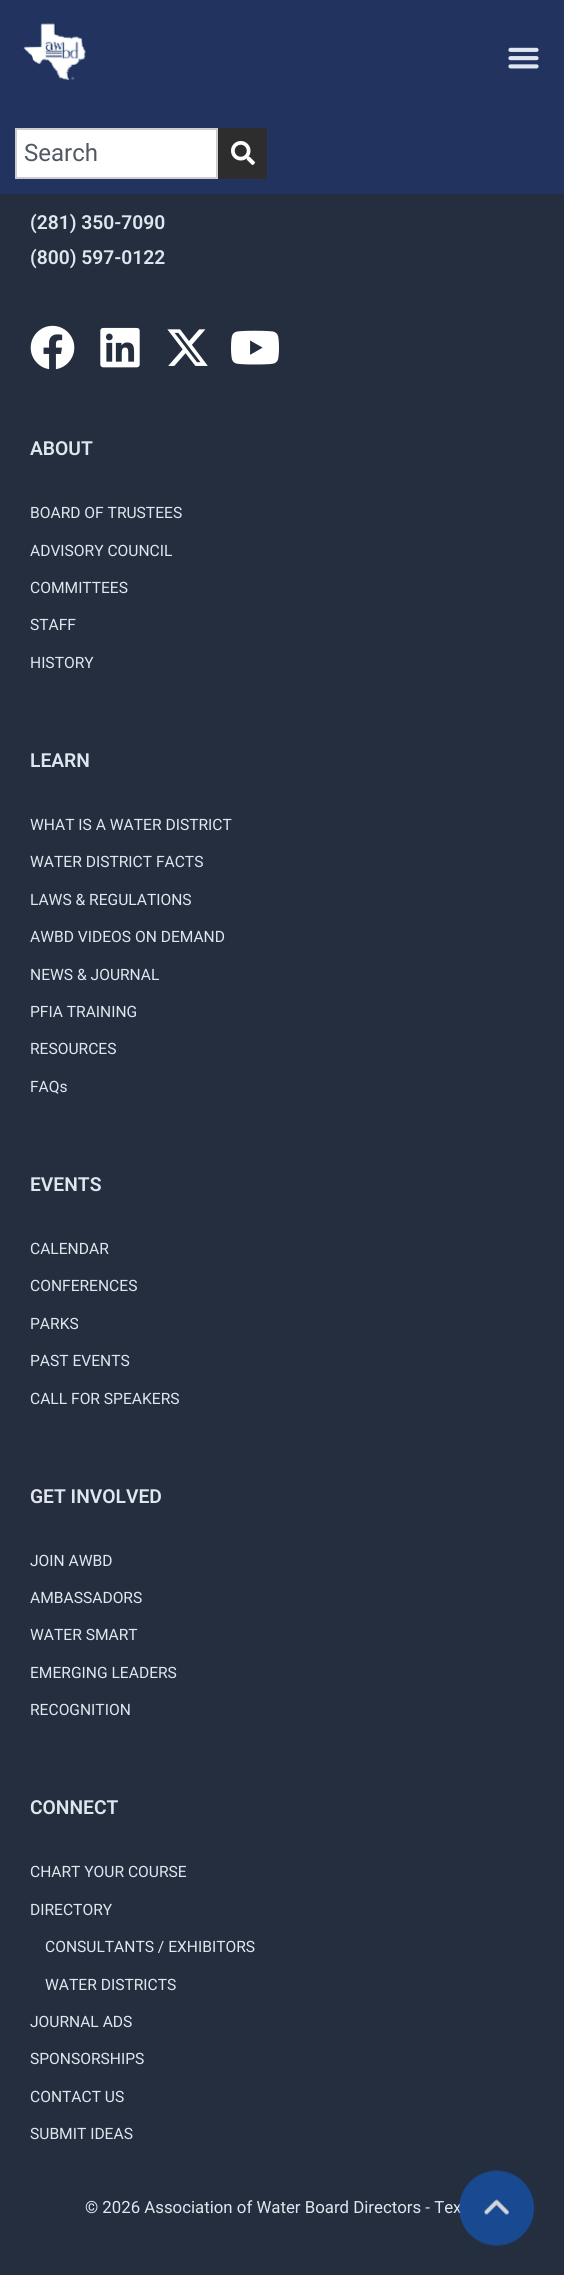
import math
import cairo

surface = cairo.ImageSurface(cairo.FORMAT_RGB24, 564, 2275)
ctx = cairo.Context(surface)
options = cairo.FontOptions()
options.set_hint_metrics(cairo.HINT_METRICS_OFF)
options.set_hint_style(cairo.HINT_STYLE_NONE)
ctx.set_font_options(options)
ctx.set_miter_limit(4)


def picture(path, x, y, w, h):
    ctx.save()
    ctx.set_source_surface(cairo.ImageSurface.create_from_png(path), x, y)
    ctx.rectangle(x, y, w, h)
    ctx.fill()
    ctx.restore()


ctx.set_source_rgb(0.141, 0.18, 0.247)
ctx.paint()
ctx.set_source_rgb(0.133, 0.2, 0.376)
ctx.rectangle(0, 0, 564, 194)
ctx.fill()
picture("img1.png", 23, 23, 64, 58)
picture("img2.png", 508, 47, 31, 22)
ctx.set_source_rgb(1, 1, 1)
ctx.rectangle(16, 129, 201, 49)
ctx.fill_preserve()
ctx.set_source_rgb(0.804, 0.804, 0.804)
ctx.stroke()
ctx.select_font_face("Roboto")
ctx.set_font_size(24)
ctx.set_source_rgb(0.318, 0.349, 0.384)
ctx.move_to(24, 161)
ctx.show_text("Search")
ctx.set_source_rgb(0.176, 0.176, 0.176)
ctx.rectangle(218, 128, 49, 51)
ctx.fill()
picture("img3.png", 231, 141, 24, 24)
ctx.select_font_face("Roboto SemiBold")
ctx.set_font_size(19.25)
ctx.set_source_rgb(0.878, 0.902, 0.937)
ctx.move_to(30, 229)
ctx.show_text("(281) 350-7090")
ctx.move_to(30, 264)
ctx.show_text("(800) 597-0122")
picture("img4.png", 30, 325, 45, 45)
picture("img5.png", 100, 327, 40, 41)
picture("img6.png", 167, 329, 41, 37)
picture("img7.png", 231, 330, 48, 35)
ctx.move_to(30, 455)
ctx.show_text("ABOUT")
ctx.select_font_face("Roboto")
ctx.set_font_size(15.6)
ctx.move_to(30, 518)
ctx.show_text("BOARD OF TRUSTEES")
ctx.move_to(30, 556)
ctx.show_text("ADVISORY COUNCIL")
ctx.move_to(30, 593)
ctx.show_text("COMMITTEES")
ctx.move_to(30, 630)
ctx.show_text("STAFF")
ctx.move_to(30, 668)
ctx.show_text("HISTORY")
ctx.select_font_face("Roboto SemiBold")
ctx.set_font_size(19.25)
ctx.move_to(30, 767)
ctx.show_text("LEARN")
ctx.select_font_face("Roboto")
ctx.set_font_size(15.6)
ctx.move_to(30, 830)
ctx.show_text("WHAT IS A WATER DISTRICT")
ctx.move_to(30, 867)
ctx.show_text("WATER DISTRICT FACTS")
ctx.move_to(30, 905)
ctx.show_text("LAWS & REGULATIONS")
ctx.move_to(30, 942)
ctx.show_text("AWBD VIDEOS ON DEMAND")
ctx.move_to(30, 980)
ctx.show_text("NEWS & JOURNAL")
ctx.move_to(30, 1017)
ctx.show_text("PFIA TRAINING")
ctx.move_to(30, 1054)
ctx.show_text("RESOURCES")
ctx.move_to(30, 1092)
ctx.show_text("FAQs")
ctx.select_font_face("Roboto SemiBold")
ctx.set_font_size(19.25)
ctx.move_to(30, 1191)
ctx.show_text("EVENTS")
ctx.select_font_face("Roboto")
ctx.set_font_size(15.6)
ctx.move_to(30, 1254)
ctx.show_text("CALENDAR")
ctx.move_to(30, 1291)
ctx.show_text("CONFERENCES")
ctx.move_to(30, 1329)
ctx.show_text("PARKS")
ctx.move_to(30, 1366)
ctx.show_text("PAST EVENTS")
ctx.move_to(30, 1404)
ctx.show_text("CALL FOR SPEAKERS")
ctx.select_font_face("Roboto SemiBold")
ctx.set_font_size(19.25)
ctx.move_to(30, 1503)
ctx.show_text("GET INVOLVED")
ctx.select_font_face("Roboto")
ctx.set_font_size(15.6)
ctx.move_to(30, 1566)
ctx.show_text("JOIN AWBD")
ctx.move_to(30, 1603)
ctx.show_text("AMBASSADORS")
ctx.move_to(30, 1640)
ctx.show_text("WATER SMART")
ctx.move_to(30, 1678)
ctx.show_text("EMERGING LEADERS")
ctx.move_to(30, 1715)
ctx.show_text("RECOGNITION")
ctx.select_font_face("Roboto SemiBold")
ctx.set_font_size(19.25)
ctx.move_to(30, 1814)
ctx.show_text("CONNECT")
ctx.select_font_face("Roboto")
ctx.set_font_size(15.6)
ctx.move_to(30, 1877)
ctx.show_text("CHART YOUR COURSE")
ctx.move_to(30, 1915)
ctx.show_text("DIRECTORY")
ctx.move_to(45, 1952)
ctx.show_text("CONSULTANTS / EXHIBITORS")
ctx.move_to(45, 1990)
ctx.show_text("WATER DISTRICTS")
ctx.move_to(30, 2027)
ctx.show_text("JOURNAL ADS")
ctx.move_to(30, 2064)
ctx.show_text("SPONSORSHIPS")
ctx.move_to(30, 2102)
ctx.show_text("CONTACT US")
ctx.move_to(30, 2139)
ctx.show_text("SUBMIT IDEAS")
ctx.set_font_size(16.8)
ctx.move_to(85, 2213)
ctx.show_text("© 2026 Association of Water Board Directors - Tex")
picture("img8.png", 459, 2170, 75, 76)
surface.write_to_png("page.png")
